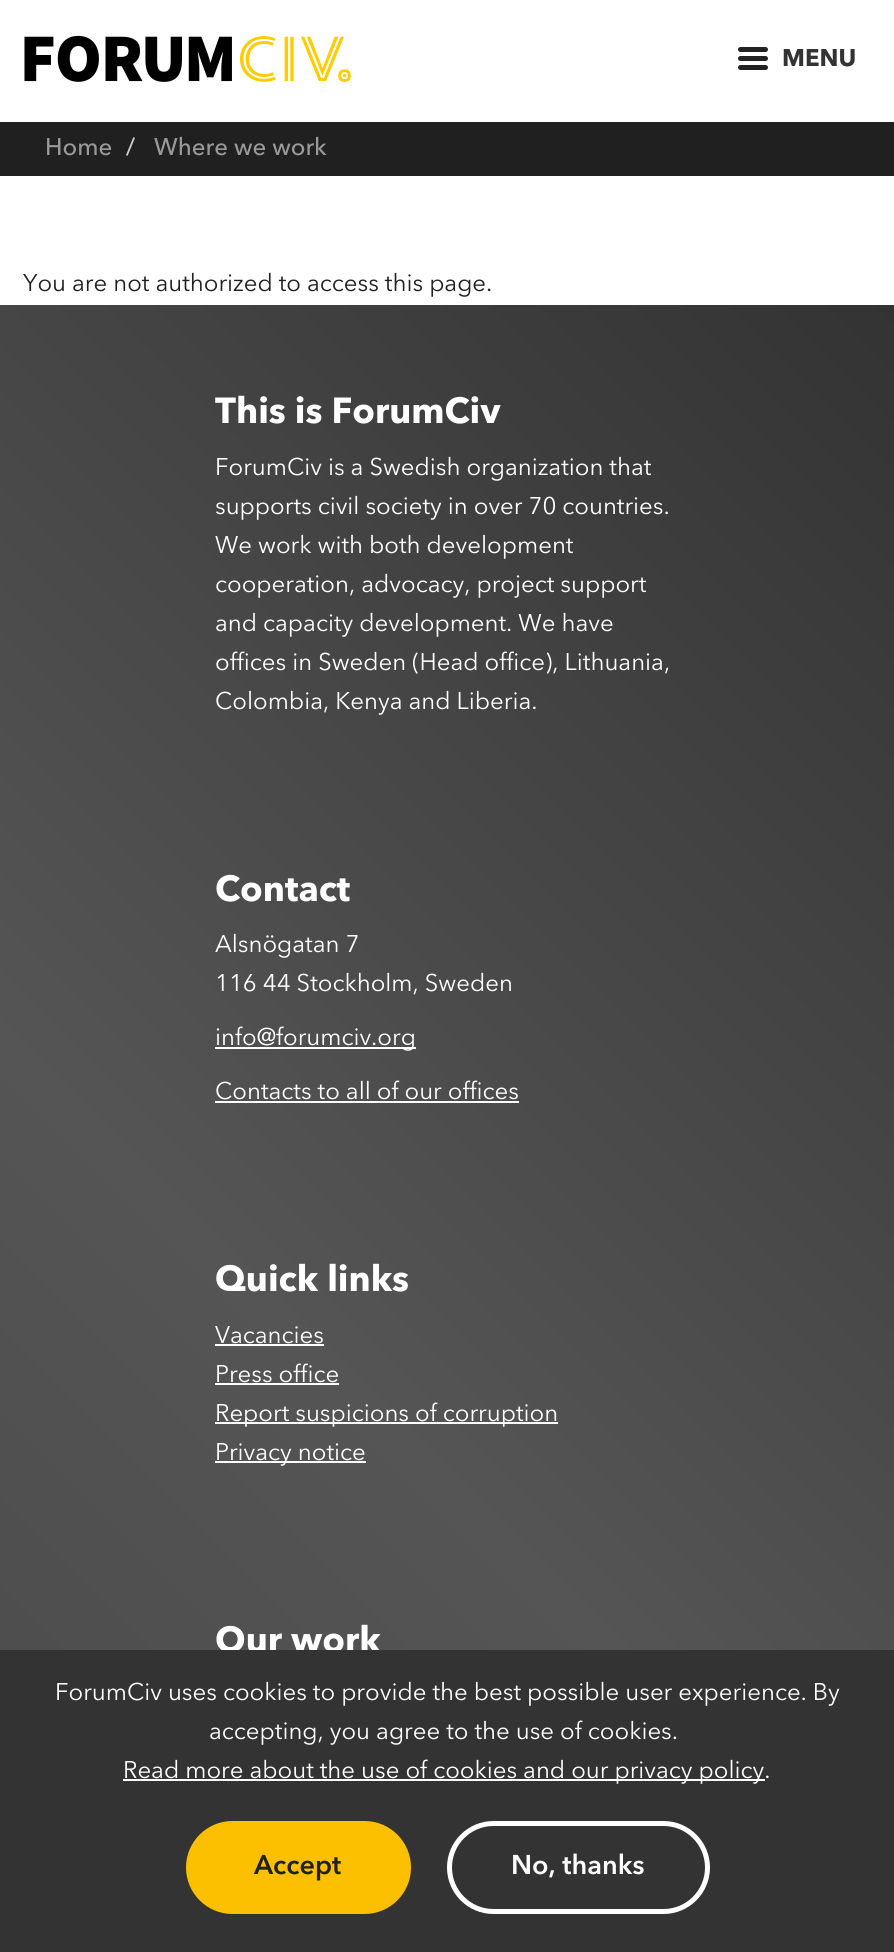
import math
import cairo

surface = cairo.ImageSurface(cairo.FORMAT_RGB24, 894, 1952)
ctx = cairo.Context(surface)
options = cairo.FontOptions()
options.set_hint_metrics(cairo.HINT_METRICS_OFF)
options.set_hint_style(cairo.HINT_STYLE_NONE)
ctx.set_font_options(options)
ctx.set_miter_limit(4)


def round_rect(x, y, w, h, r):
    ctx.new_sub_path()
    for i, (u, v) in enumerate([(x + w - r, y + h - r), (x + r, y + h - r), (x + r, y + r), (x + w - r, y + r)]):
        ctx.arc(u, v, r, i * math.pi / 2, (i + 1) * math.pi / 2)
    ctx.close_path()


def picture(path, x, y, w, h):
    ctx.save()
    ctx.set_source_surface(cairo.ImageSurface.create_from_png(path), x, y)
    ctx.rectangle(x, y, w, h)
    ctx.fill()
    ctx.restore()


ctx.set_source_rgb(1, 1, 1)
ctx.paint()
picture("img1.png", 24, 35, 327, 47)
ctx.set_source_rgb(0.133, 0.133, 0.133)
round_rect(738, 47, 30, 5, 2.5)
ctx.fill()
ctx.select_font_face("Avenir Next", cairo.FONT_SLANT_NORMAL, cairo.FONT_WEIGHT_BOLD)
ctx.set_font_size(24)
ctx.set_source_rgb(0.2, 0.2, 0.2)
ctx.move_to(782, 66)
ctx.show_text("MENU")
ctx.set_source_rgb(0.133, 0.133, 0.133)
round_rect(738, 56, 30, 5, 2.5)
ctx.fill()
round_rect(738, 65, 30, 5, 2.5)
ctx.fill()
ctx.set_source_rgb(0.125, 0.125, 0.125)
ctx.rectangle(0, 122, 894, 54)
ctx.fill()
ctx.select_font_face("Avenir Next Medium")
ctx.set_source_rgb(0.6, 0.6, 0.6)
ctx.move_to(45, 155)
ctx.show_text("Home")
ctx.set_source_rgb(0.8, 0.8, 0.8)
ctx.move_to(126, 155)
ctx.show_text("/")
ctx.set_source_rgb(0.6, 0.6, 0.6)
ctx.move_to(154, 155)
ctx.show_text("Where we work")
ctx.select_font_face("Avenir Next")
ctx.set_source_rgb(0.125, 0.125, 0.125)
ctx.move_to(23, 291)
ctx.show_text("You are not authorized to access this page.")
gradient = cairo.LinearGradient(-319, 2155, 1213, 623)
gradient.add_color_stop_rgba(0, 0.267, 0.267, 0.267, 1)
gradient.add_color_stop_rgba(0.47, 0.333, 0.333, 0.333, 1)
gradient.add_color_stop_rgba(1, 0.2, 0.2, 0.2, 1)
ctx.set_source(gradient)
ctx.rectangle(0, 305, 894, 1345)
ctx.fill()
ctx.select_font_face("Avenir Next", cairo.FONT_SLANT_NORMAL, cairo.FONT_WEIGHT_BOLD)
ctx.set_font_size(36)
ctx.set_source_rgb(1, 1, 1)
ctx.move_to(215, 423)
ctx.show_text("This is ForumCiv")
ctx.select_font_face("Avenir Next")
ctx.set_font_size(24)
ctx.move_to(215, 475)
ctx.show_text("ForumCiv is a Swedish organization that")
ctx.move_to(215, 514)
ctx.show_text("supports civil society in over 70 countries.")
ctx.move_to(215, 553)
ctx.show_text("We work with both development")
ctx.move_to(215, 592)
ctx.show_text("cooperation, advocacy, project support")
ctx.move_to(215, 631)
ctx.show_text("and capacity development. We have")
ctx.move_to(215, 670)
ctx.show_text("offices in Sweden (Head office), Lithuania,")
ctx.move_to(215, 709)
ctx.show_text("Colombia, Kenya and Liberia.")
ctx.select_font_face("Avenir Next", cairo.FONT_SLANT_NORMAL, cairo.FONT_WEIGHT_BOLD)
ctx.set_font_size(36)
ctx.move_to(215, 901)
ctx.show_text("Contact")
ctx.select_font_face("Avenir Next")
ctx.set_font_size(24)
ctx.move_to(215, 952)
ctx.show_text("Alsnögatan 7")
ctx.move_to(215, 991)
ctx.show_text("116 44 Stockholm, Sweden")
ctx.rectangle(215, 1047, 201, 2)
ctx.fill()
ctx.move_to(215, 1045)
ctx.show_text("info@forumciv.org")
ctx.move_to(215, 1099)
ctx.show_text("Contacts to all of our offices")
ctx.rectangle(215, 1101, 304, 2)
ctx.fill()
ctx.select_font_face("Avenir Next", cairo.FONT_SLANT_NORMAL, cairo.FONT_WEIGHT_BOLD)
ctx.set_font_size(36)
ctx.move_to(215, 1291)
ctx.show_text("Quick links")
ctx.select_font_face("Avenir Next")
ctx.set_font_size(24)
ctx.move_to(215, 1343)
ctx.show_text("Vacancies")
ctx.rectangle(215, 1344, 109, 2)
ctx.fill()
ctx.move_to(215, 1382)
ctx.show_text("Press office")
ctx.rectangle(215, 1383, 124, 2)
ctx.fill()
ctx.rectangle(215, 1422, 343, 2)
ctx.fill()
ctx.move_to(215, 1421)
ctx.show_text("Report suspicions of corruption")
ctx.rectangle(215, 1461, 151, 2)
ctx.fill()
ctx.move_to(215, 1460)
ctx.show_text("Privacy notice")
ctx.select_font_face("Avenir Next", cairo.FONT_SLANT_NORMAL, cairo.FONT_WEIGHT_BOLD)
ctx.set_font_size(36)
ctx.move_to(215, 1652)
ctx.show_text("Our work")
ctx.set_source_rgb(0.2, 0.2, 0.2)
ctx.rectangle(0, 1650, 894, 302)
ctx.fill()
ctx.select_font_face("Avenir Next")
ctx.set_font_size(24)
ctx.set_source_rgb(1, 1, 1)
ctx.move_to(55, 1700)
ctx.show_text("ForumCiv uses cookies to provide the best possible user experience. By")
ctx.move_to(209, 1739)
ctx.show_text("accepting, you agree to the use of cookies.")
ctx.rectangle(123, 1779, 642, 2)
ctx.fill()
ctx.move_to(123, 1778)
ctx.show_text("Read more about the use of cookies and our privacy policy.")
ctx.set_source_rgb(0.988, 0.753, 0.004)
round_rect(188.5, 1823.5, 220, 88, 44)
ctx.fill_preserve()
ctx.set_line_width(5)
ctx.stroke()
ctx.select_font_face("Avenir Next SemiBold")
ctx.set_font_size(27)
ctx.set_source_rgb(0.125, 0.125, 0.125)
ctx.move_to(254, 1874)
ctx.show_text("Accept")
round_rect(449.5, 1823.5, 258, 88, 44)
ctx.set_source_rgb(1, 1, 1)
ctx.stroke()
ctx.move_to(511, 1874)
ctx.show_text("No, thanks")
surface.write_to_png("page.png")
